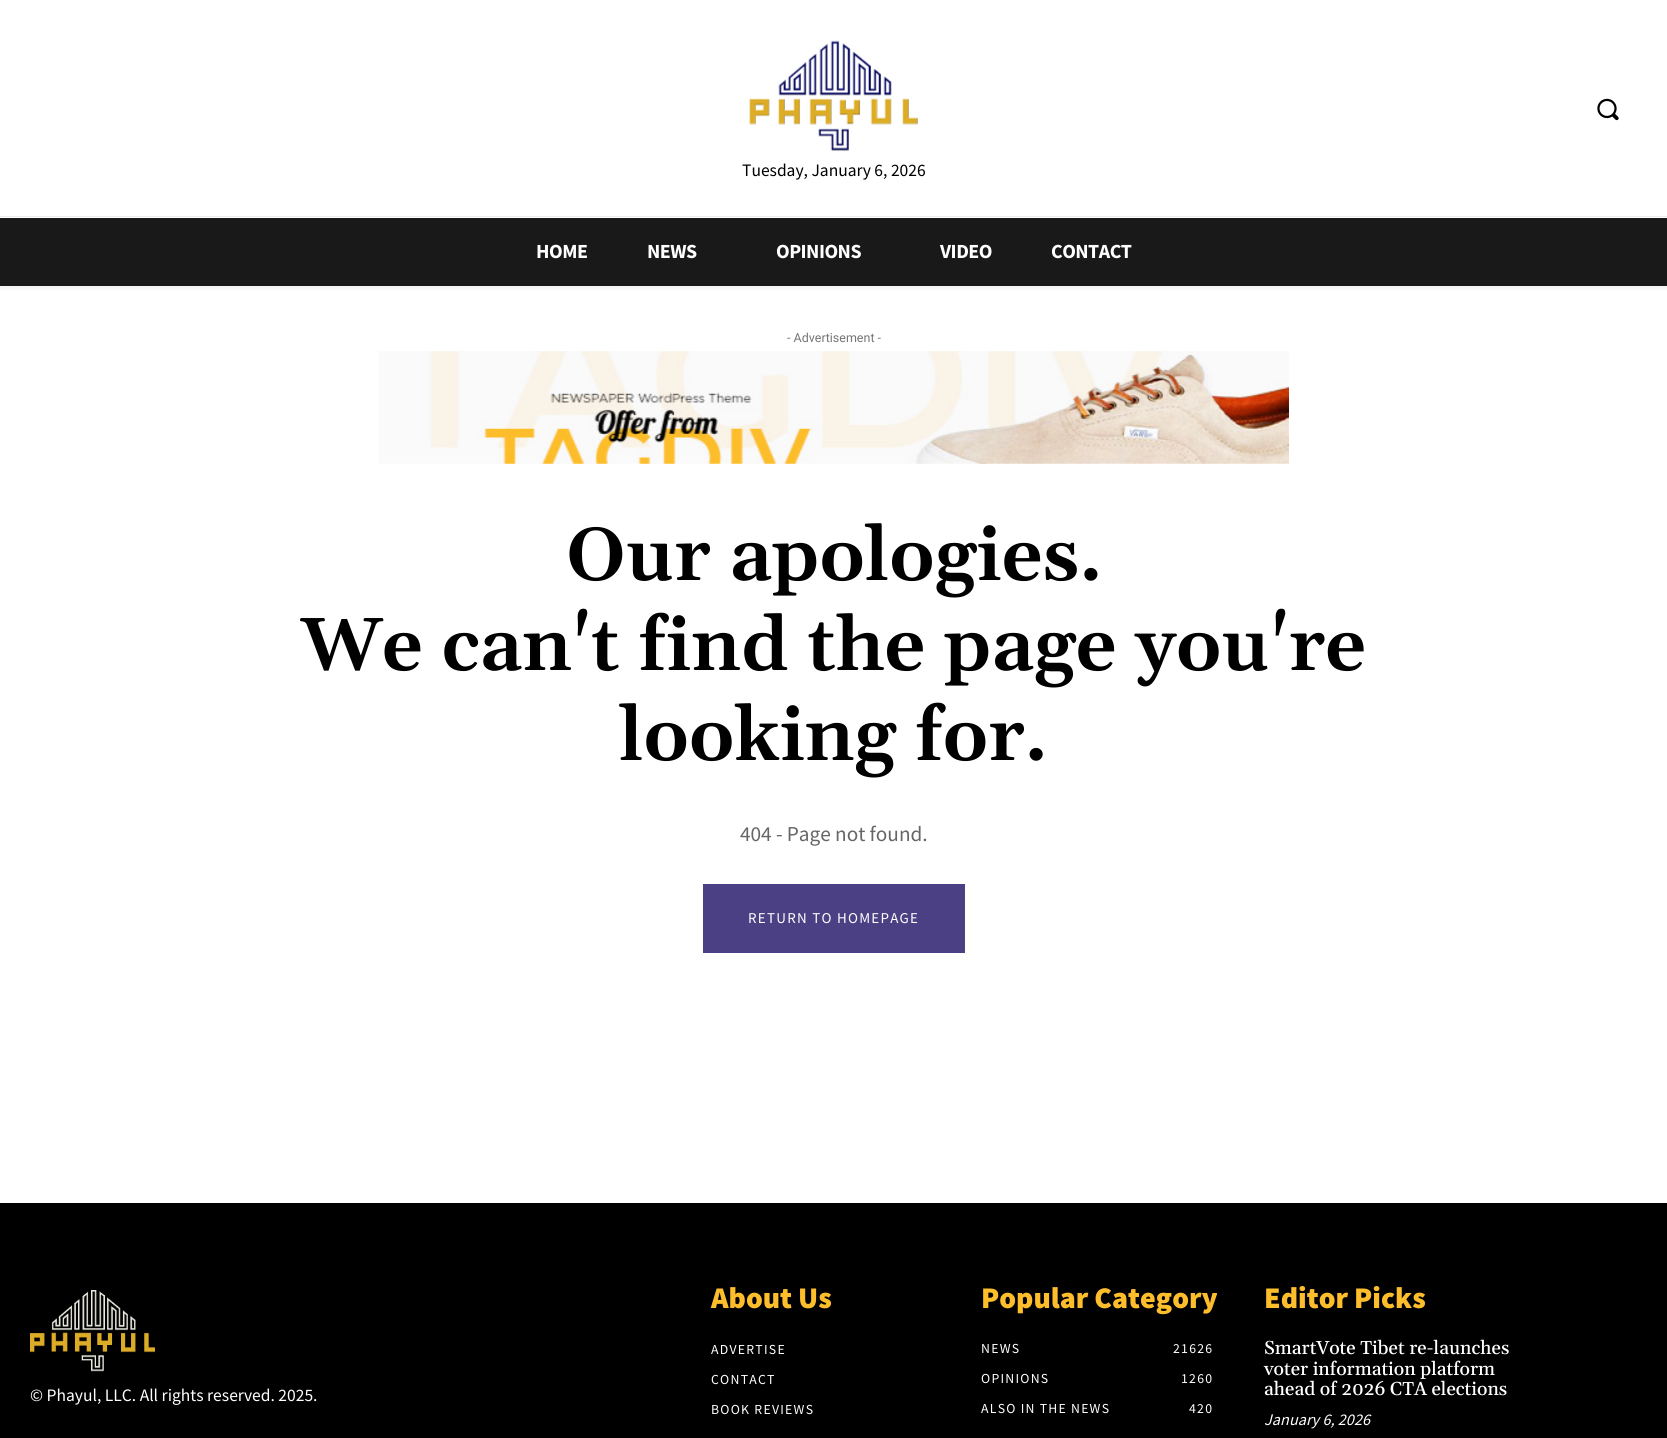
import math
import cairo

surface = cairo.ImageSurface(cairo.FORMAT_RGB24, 1667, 1438)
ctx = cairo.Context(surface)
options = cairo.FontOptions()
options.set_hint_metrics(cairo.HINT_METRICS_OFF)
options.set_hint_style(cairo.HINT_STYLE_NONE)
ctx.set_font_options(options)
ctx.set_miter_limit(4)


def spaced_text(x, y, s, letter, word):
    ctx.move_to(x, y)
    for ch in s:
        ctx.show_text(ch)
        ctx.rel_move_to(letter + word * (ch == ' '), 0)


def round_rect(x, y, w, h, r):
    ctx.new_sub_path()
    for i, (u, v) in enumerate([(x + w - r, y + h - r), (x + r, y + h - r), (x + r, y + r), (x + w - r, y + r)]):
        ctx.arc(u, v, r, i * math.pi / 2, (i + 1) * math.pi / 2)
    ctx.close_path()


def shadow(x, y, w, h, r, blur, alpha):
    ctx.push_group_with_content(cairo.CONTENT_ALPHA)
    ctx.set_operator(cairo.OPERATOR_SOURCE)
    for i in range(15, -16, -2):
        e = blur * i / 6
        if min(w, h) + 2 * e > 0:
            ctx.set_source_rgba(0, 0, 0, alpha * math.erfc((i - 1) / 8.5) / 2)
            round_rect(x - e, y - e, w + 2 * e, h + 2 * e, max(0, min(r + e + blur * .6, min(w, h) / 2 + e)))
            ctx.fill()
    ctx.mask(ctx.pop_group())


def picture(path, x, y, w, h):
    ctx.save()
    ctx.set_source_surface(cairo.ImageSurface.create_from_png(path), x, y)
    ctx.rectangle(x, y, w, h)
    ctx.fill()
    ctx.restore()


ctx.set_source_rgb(1, 1, 1)
ctx.paint()
picture("img1.png", 1597, 98, 22, 23)
picture("img2.png", 748, 40, 170, 111)
ctx.select_font_face("Source Sans Pro")
ctx.set_font_size(17.5)
ctx.set_source_rgb(0, 0, 0)
ctx.move_to(742, 176)
ctx.show_text("Tuesday, January 6, 2026")
ctx.set_source_rgb(0.918, 0.918, 0.918)
ctx.rectangle(0, 216, 1667, 1)
ctx.fill()
ctx.save()
ctx.rectangle(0, 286, 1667, 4)
ctx.clip()
ctx.set_source_rgb(0, 0, 0)
shadow(0, 181, 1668, 108, 0, 2.5, 0.06)
ctx.restore()
ctx.set_source_rgb(0.098, 0.098, 0.098)
ctx.rectangle(0, 218, 1667, 68)
ctx.fill()
ctx.select_font_face("Source Sans Pro", cairo.FONT_SLANT_NORMAL, cairo.FONT_WEIGHT_BOLD)
ctx.set_font_size(20)
ctx.set_source_rgb(1, 1, 1)
spaced_text(536, 258, "HOME", -0.5, 0)
spaced_text(647, 258, "NEWS", -0.5, 0)
spaced_text(776, 258, "OPINIONS", -0.5, 0)
spaced_text(940, 258, "VIDEO", -0.5, 0)
spaced_text(1051, 258, "CONTACT", -0.5, 0)
ctx.select_font_face("Roboto")
ctx.set_font_size(12.5)
ctx.set_source_rgb(0.463, 0.463, 0.463)
ctx.move_to(787, 342)
ctx.show_text("- Advertisement -")
picture("img3.png", 379, 351, 910, 113)
ctx.select_font_face("Gelasio SemiBold")
ctx.set_font_size(75)
ctx.set_source_rgb(0, 0, 0)
ctx.move_to(566, 580)
ctx.show_text("Our apologies.")
ctx.move_to(301, 670)
ctx.show_text("We can't find the page you're")
ctx.move_to(619, 760)
ctx.show_text("looking for.")
ctx.select_font_face("Source Sans Pro")
ctx.set_font_size(21.25)
ctx.set_source_rgb(0.4, 0.4, 0.4)
ctx.move_to(740, 841)
ctx.show_text("404 - Page not found.")
ctx.set_source_rgb(0.298, 0.251, 0.518)
ctx.rectangle(703, 884, 262, 69)
ctx.fill()
ctx.set_font_size(15)
ctx.set_source_rgb(1, 1, 1)
spaced_text(748, 923, "RETURN TO HOMEPAGE", 1.25, 0)
ctx.set_source_rgb(0, 0, 0)
ctx.rectangle(0, 1203, 1667, 235)
ctx.fill()
picture("img4.png", 30, 1290, 125, 82)
ctx.set_font_size(17.5)
ctx.set_source_rgb(1, 1, 1)
ctx.move_to(30, 1401)
ctx.show_text("© Phayul, LLC. All rights reserved. 2025.")
ctx.select_font_face("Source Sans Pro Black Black")
ctx.set_font_size(30)
ctx.set_source_rgb(0.996, 0.745, 0.169)
ctx.move_to(711, 1308)
ctx.show_text("About Us")
ctx.select_font_face("Source Sans Pro")
ctx.set_font_size(13.75)
ctx.set_source_rgb(1, 1, 1)
spaced_text(711, 1354, "ADVERTISE", 1.25, 0)
spaced_text(711, 1384, "CONTACT", 1.25, 0)
spaced_text(711, 1414, "BOOK REVIEWS", 1.25, 0)
ctx.select_font_face("Source Sans Pro Black Black")
ctx.set_font_size(30)
ctx.set_source_rgb(0.996, 0.745, 0.169)
ctx.move_to(981, 1308)
ctx.show_text("Popular Category")
ctx.select_font_face("Source Sans Pro")
ctx.set_font_size(13.75)
ctx.set_source_rgb(1, 1, 1)
spaced_text(981, 1353, "NEWS", 1.25, 0)
spaced_text(1173, 1353, "21626", 1.25, 0)
spaced_text(981, 1383, "OPINIONS", 1.25, 0)
spaced_text(1181, 1383, "1260", 1.25, 0)
spaced_text(981, 1413, "ALSO IN THE NEWS", 1.25, 0)
spaced_text(1189, 1413, "420", 1.25, 0)
ctx.select_font_face("Source Sans Pro Black Black")
ctx.set_font_size(30)
ctx.set_source_rgb(0.996, 0.745, 0.169)
ctx.move_to(1264, 1308)
ctx.show_text("Editor Picks")
ctx.select_font_face("Gelasio Medium")
ctx.set_font_size(18.75)
ctx.set_source_rgb(1, 1, 1)
ctx.move_to(1264, 1354)
ctx.show_text("SmartVote Tibet re-launches")
ctx.move_to(1264, 1375)
ctx.show_text("voter information platform")
ctx.move_to(1264, 1395)
ctx.show_text("ahead of 2026 CTA elections")
ctx.select_font_face("Source Sans Pro", cairo.FONT_SLANT_ITALIC)
ctx.set_font_size(16.25)
ctx.move_to(1264, 1425)
ctx.show_text("January 6, 2026")
surface.write_to_png("page.png")
